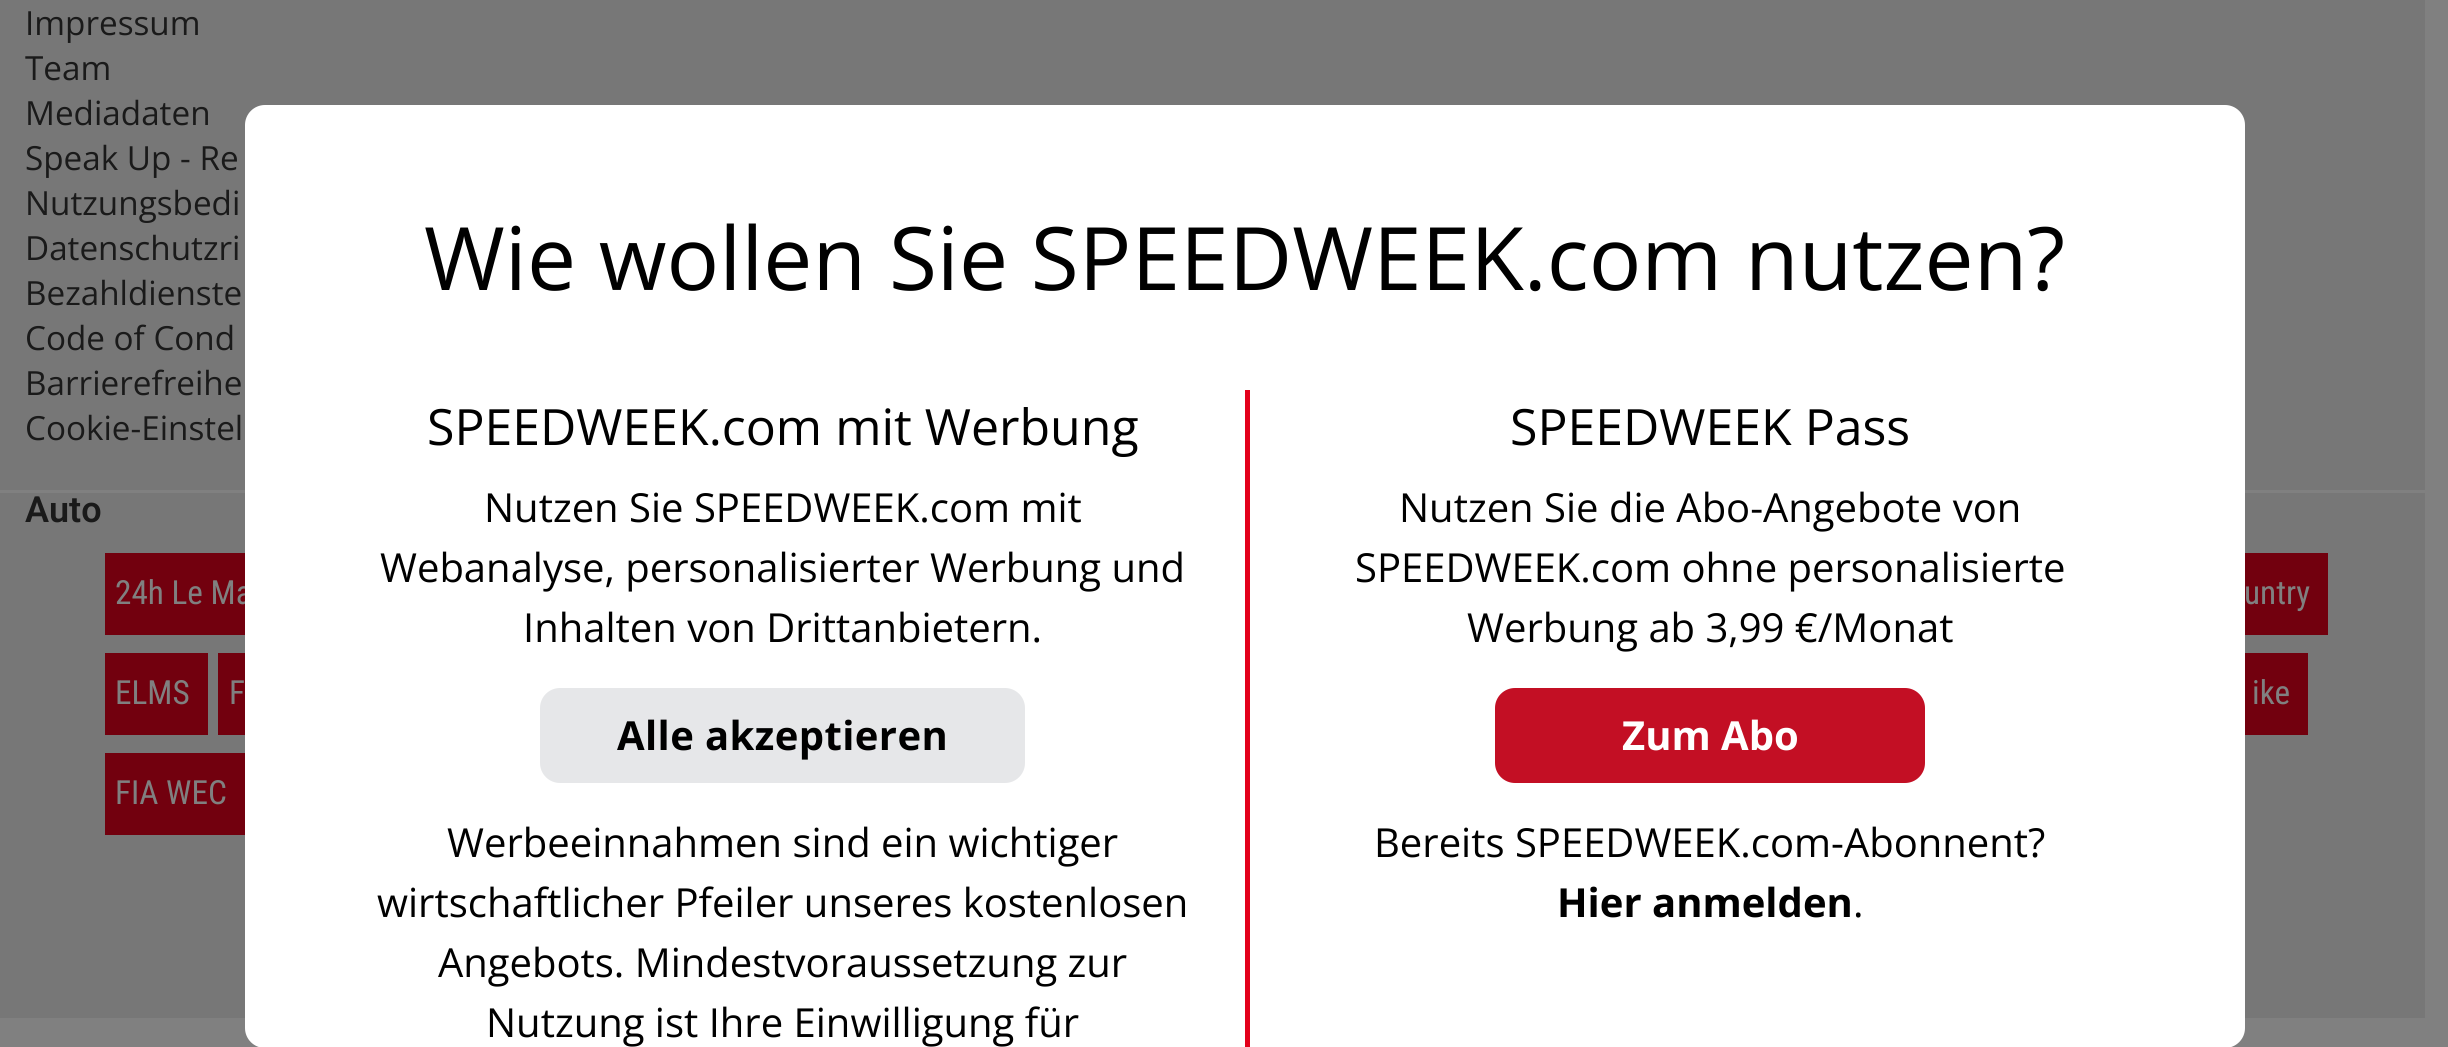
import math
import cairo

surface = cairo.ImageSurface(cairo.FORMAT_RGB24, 2448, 1047)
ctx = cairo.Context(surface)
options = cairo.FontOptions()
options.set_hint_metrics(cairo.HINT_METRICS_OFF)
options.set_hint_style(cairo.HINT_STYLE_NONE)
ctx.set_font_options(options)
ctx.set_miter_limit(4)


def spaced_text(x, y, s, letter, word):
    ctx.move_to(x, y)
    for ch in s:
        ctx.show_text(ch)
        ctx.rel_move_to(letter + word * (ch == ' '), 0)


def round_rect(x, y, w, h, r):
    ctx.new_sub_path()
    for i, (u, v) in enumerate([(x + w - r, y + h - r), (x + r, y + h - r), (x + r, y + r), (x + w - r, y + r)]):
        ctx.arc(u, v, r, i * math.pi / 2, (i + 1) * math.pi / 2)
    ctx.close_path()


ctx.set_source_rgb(0.502, 0.502, 0.502)
ctx.paint()
ctx.set_source_rgb(0.467, 0.467, 0.467)
ctx.rectangle(0, 0, 2425, 1018)
ctx.fill()
ctx.select_font_face("Open Sans")
ctx.set_font_size(33.25)
ctx.set_source_rgb(0.102, 0.102, 0.102)
ctx.move_to(25, 35)
ctx.show_text("Impressum")
ctx.move_to(25, 80)
ctx.show_text("Team")
ctx.move_to(25, 125)
ctx.show_text("Mediadaten")
ctx.move_to(25, 170)
ctx.show_text("Speak Up - Re")
ctx.move_to(25, 215)
ctx.show_text("Nutzungsbedi")
ctx.move_to(25, 260)
ctx.show_text("Datenschutzri")
ctx.move_to(25, 305)
ctx.show_text("Bezahldienste")
ctx.move_to(25, 350)
ctx.show_text("Code of Cond")
ctx.move_to(25, 395)
ctx.show_text("Barrierefreihe")
ctx.move_to(25, 440)
ctx.show_text("Cookie-Einstel")
ctx.set_source_rgb(0.502, 0.502, 0.502)
ctx.rectangle(0, 490, 245, 3)
ctx.fill()
ctx.select_font_face("Roboto SemiBold")
ctx.set_font_size(36)
ctx.set_source_rgb(0.102, 0.102, 0.102)
ctx.move_to(25, 522)
ctx.show_text("Auto")
ctx.set_source_rgb(0.447, 0, 0.055)
ctx.rectangle(105, 553, 140, 82)
ctx.fill()
ctx.select_font_face("Roboto Condensed")
ctx.set_font_size(33.25)
ctx.set_source_rgb(0.502, 0.502, 0.502)
ctx.move_to(115, 604)
ctx.show_text("24h Le Ma")
ctx.set_source_rgb(0.447, 0, 0.055)
ctx.rectangle(105, 653, 103, 82)
ctx.fill()
ctx.set_source_rgb(0.502, 0.502, 0.502)
ctx.move_to(115, 704)
ctx.show_text("ELMS")
ctx.set_source_rgb(0.447, 0, 0.055)
ctx.rectangle(218, 653, 27, 82)
ctx.fill()
ctx.set_source_rgb(0.502, 0.502, 0.502)
ctx.move_to(229, 704)
ctx.show_text("F")
ctx.set_source_rgb(0.447, 0, 0.055)
ctx.rectangle(105, 753, 140, 82)
ctx.fill()
ctx.set_source_rgb(0.502, 0.502, 0.502)
ctx.move_to(115, 804)
ctx.show_text("FIA WEC")
ctx.rectangle(2245, 490, 180, 3)
ctx.fill()
ctx.set_source_rgb(0.447, 0, 0.055)
ctx.rectangle(2245, 553, 83, 82)
ctx.fill()
ctx.set_source_rgb(0.502, 0.502, 0.502)
ctx.move_to(2244, 604)
ctx.show_text("untry")
ctx.set_source_rgb(0.447, 0, 0.055)
ctx.rectangle(2245, 653, 63, 82)
ctx.fill()
ctx.set_source_rgb(0.502, 0.502, 0.502)
ctx.move_to(2252, 704)
ctx.show_text("ike")
ctx.set_source_rgb(1, 1, 1)
round_rect(245, 105, 2000, 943, 20)
ctx.fill()
ctx.select_font_face("Open Sans")
ctx.set_font_size(87.5)
ctx.set_source_rgb(0, 0, 0)
ctx.move_to(424, 290)
ctx.show_text("Wie wollen Sie SPEEDWEEK.com nutzen?")
ctx.set_font_size(50)
ctx.move_to(427, 445)
ctx.show_text("SPEEDWEEK.com mit Werbung")
ctx.set_font_size(40)
ctx.move_to(484, 522)
ctx.show_text("Nutzen Sie SPEEDWEEK.com mit")
ctx.move_to(380, 582)
ctx.show_text("Webanalyse, personalisierter Werbung und")
ctx.move_to(523, 642)
ctx.show_text("Inhalten von Drittanbietern.")
ctx.set_source_rgb(0.902, 0.906, 0.914)
round_rect(540, 688, 485, 95, 20)
ctx.fill()
ctx.select_font_face("Open Sans", cairo.FONT_SLANT_NORMAL, cairo.FONT_WEIGHT_BOLD)
ctx.set_source_rgb(0, 0, 0)
spaced_text(617, 750, "Alle akzeptieren", 0.4, 0)
ctx.select_font_face("Open Sans")
ctx.move_to(447, 857)
ctx.show_text("Werbeeinnahmen sind ein wichtiger")
ctx.move_to(377, 917)
ctx.show_text("wirtschaftlicher Pfeiler unseres kostenlosen")
ctx.move_to(438, 977)
ctx.show_text("Angebots. Mindestvoraussetzung zur")
ctx.move_to(486, 1037)
ctx.show_text("Nutzung ist Ihre Einwilligung für")
ctx.set_source_rgb(0.89, 0, 0.106)
ctx.rectangle(1245, 390, 5, 657)
ctx.fill()
ctx.set_font_size(50)
ctx.set_source_rgb(0, 0, 0)
ctx.move_to(1510, 445)
ctx.show_text("SPEEDWEEK Pass")
ctx.set_font_size(40)
ctx.move_to(1399, 522)
ctx.show_text("Nutzen Sie die Abo-Angebote von")
ctx.move_to(1355, 582)
ctx.show_text("SPEEDWEEK.com ohne personalisierte")
ctx.move_to(1467, 642)
ctx.show_text("Werbung ab 3,99 €/Monat")
ctx.set_source_rgb(0.765, 0.059, 0.141)
round_rect(1496.5, 689.5, 427, 92, 18.5)
ctx.fill_preserve()
ctx.set_line_width(3)
ctx.stroke()
ctx.select_font_face("Open Sans", cairo.FONT_SLANT_NORMAL, cairo.FONT_WEIGHT_BOLD)
ctx.set_source_rgb(1, 1, 1)
ctx.move_to(1622, 750)
ctx.show_text("Zum Abo")
ctx.select_font_face("Open Sans")
ctx.set_source_rgb(0, 0, 0)
ctx.move_to(1374, 857)
ctx.show_text("Bereits SPEEDWEEK.com-Abonnent?")
ctx.select_font_face("Open Sans", cairo.FONT_SLANT_NORMAL, cairo.FONT_WEIGHT_BOLD)
ctx.move_to(1557, 917)
ctx.show_text("Hier anmelden")
ctx.select_font_face("Open Sans")
ctx.move_to(1853, 917)
ctx.show_text(".")
surface.write_to_png("page.png")
